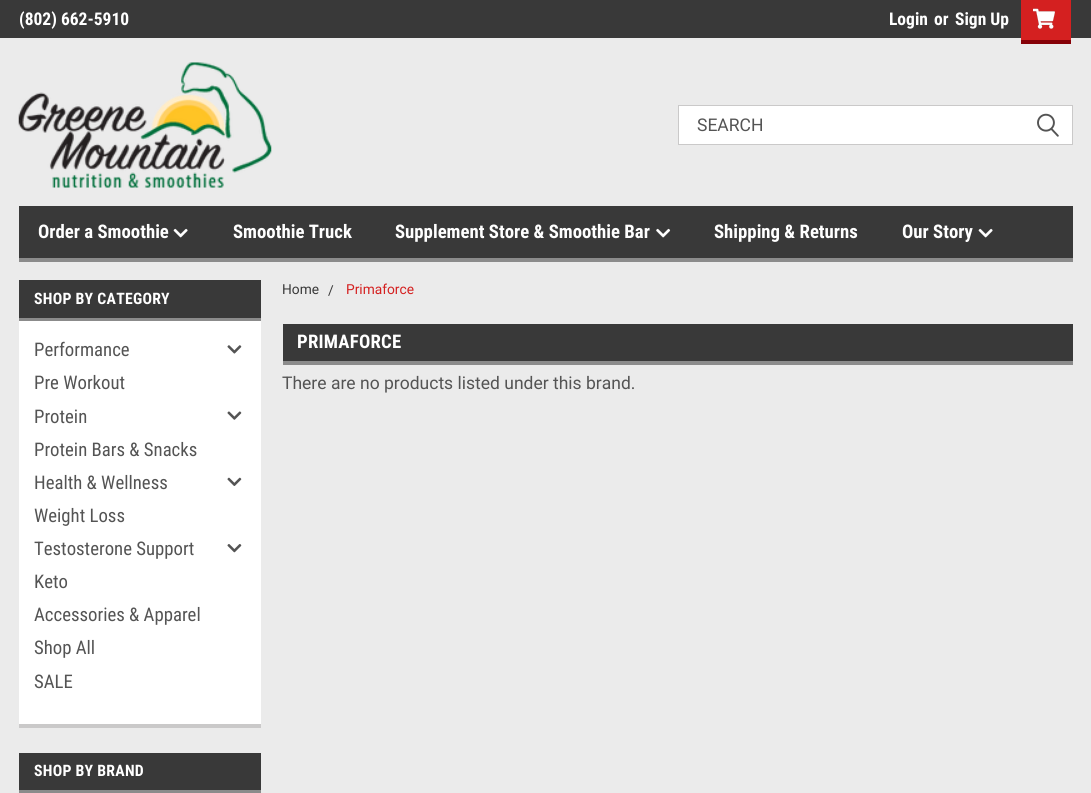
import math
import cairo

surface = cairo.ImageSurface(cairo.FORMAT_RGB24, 1091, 793)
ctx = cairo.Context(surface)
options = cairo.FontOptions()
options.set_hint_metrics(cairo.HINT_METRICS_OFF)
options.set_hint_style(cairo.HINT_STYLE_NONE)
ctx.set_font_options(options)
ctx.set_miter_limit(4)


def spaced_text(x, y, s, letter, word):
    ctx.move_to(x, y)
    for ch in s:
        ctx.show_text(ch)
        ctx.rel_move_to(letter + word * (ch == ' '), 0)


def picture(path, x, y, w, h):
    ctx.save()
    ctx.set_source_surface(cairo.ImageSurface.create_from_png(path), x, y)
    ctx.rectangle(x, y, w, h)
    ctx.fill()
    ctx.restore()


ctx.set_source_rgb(0.918, 0.918, 0.918)
ctx.paint()
ctx.set_source_rgb(0.224, 0.224, 0.224)
ctx.rectangle(0, 0, 1091, 38)
ctx.fill()
ctx.select_font_face("Roboto Condensed", cairo.FONT_SLANT_NORMAL, cairo.FONT_WEIGHT_BOLD)
ctx.set_font_size(17.5)
ctx.set_source_rgb(1, 1, 1)
ctx.move_to(19, 25)
ctx.show_text("(802) 662-5910")
ctx.move_to(889, 25)
ctx.show_text("Login")
ctx.move_to(934, 25)
ctx.show_text("or")
ctx.move_to(955, 25)
ctx.show_text("Sign Up")
ctx.set_source_rgb(0.831, 0.125, 0.125)
ctx.rectangle(1021, 0, 50, 40)
ctx.fill()
ctx.set_source_rgb(0.525, 0.004, 0.035)
ctx.rectangle(1021, 40, 50, 4)
ctx.fill()
picture("img1.png", 1033, 8, 22, 21)
picture("img2.png", 18, 62, 254, 126)
ctx.set_source_rgb(1, 1, 1)
ctx.rectangle(678.5, 105.5, 394, 39)
ctx.fill_preserve()
ctx.set_source_rgb(0.792, 0.788, 0.788)
ctx.set_line_width(1)
ctx.stroke()
ctx.select_font_face("Roboto")
ctx.set_source_rgb(0.329, 0.329, 0.329)
ctx.move_to(697, 131)
ctx.show_text("SEARCH")
picture("img3.png", 1037, 113, 22, 24)
ctx.set_source_rgb(0.224, 0.224, 0.224)
ctx.rectangle(19, 206, 1054, 52)
ctx.fill()
ctx.set_source_rgb(0.545, 0.545, 0.545)
ctx.rectangle(19, 258, 1054, 4)
ctx.fill()
ctx.select_font_face("Roboto Condensed", cairo.FONT_SLANT_NORMAL, cairo.FONT_WEIGHT_BOLD)
ctx.set_font_size(18.75)
ctx.set_source_rgb(1, 1, 1)
ctx.move_to(38, 238)
ctx.show_text("Order a Smoothie")
picture("img4.png", 173, 228, 15, 10)
ctx.move_to(233, 238)
ctx.show_text("Smoothie Truck")
ctx.move_to(395, 238)
ctx.show_text("Supplement Store & Smoothie Bar")
picture("img5.png", 656, 228, 15, 10)
ctx.move_to(714, 238)
ctx.show_text("Shipping & Returns")
ctx.move_to(902, 238)
ctx.show_text("Our Story")
picture("img4.png", 978, 228, 15, 10)
ctx.set_source_rgb(0.792, 0.788, 0.788)
ctx.rectangle(19, 724, 242, 4)
ctx.fill()
ctx.set_source_rgb(0.224, 0.224, 0.224)
ctx.rectangle(19, 280, 242, 38)
ctx.fill()
ctx.set_source_rgb(0.545, 0.545, 0.545)
ctx.rectangle(19, 318, 242, 3)
ctx.fill()
ctx.set_font_size(15.75)
ctx.set_source_rgb(1, 1, 1)
spaced_text(34, 304, "SHOP BY CATEGORY", 0.25, 0)
ctx.rectangle(19, 321, 242, 403)
ctx.fill()
ctx.select_font_face("Roboto Condensed")
ctx.set_font_size(18.75)
ctx.set_source_rgb(0.329, 0.329, 0.329)
ctx.move_to(34, 356)
ctx.show_text("Performance")
picture("img6.png", 227, 345, 15, 9)
ctx.move_to(34, 389)
ctx.show_text("Pre Workout")
ctx.move_to(34, 423)
ctx.show_text("Protein")
picture("img7.png", 227, 411, 15, 9)
ctx.move_to(34, 456)
ctx.show_text("Protein Bars & Snacks")
ctx.move_to(34, 489)
ctx.show_text("Health & Wellness")
picture("img8.png", 227, 477, 15, 9)
ctx.move_to(34, 522)
ctx.show_text("Weight Loss")
ctx.move_to(34, 555)
ctx.show_text("Testosterone Support")
picture("img9.png", 227, 544, 15, 9)
ctx.move_to(34, 588)
ctx.show_text("Keto")
ctx.move_to(34, 621)
ctx.show_text("Accessories & Apparel")
ctx.move_to(34, 654)
ctx.show_text("Shop All")
ctx.move_to(34, 688)
ctx.show_text("SALE")
ctx.set_source_rgb(0.224, 0.224, 0.224)
ctx.rectangle(19, 753, 242, 37)
ctx.fill()
ctx.set_source_rgb(0.545, 0.545, 0.545)
ctx.rectangle(19, 790, 242, 3)
ctx.fill()
ctx.select_font_face("Roboto Condensed", cairo.FONT_SLANT_NORMAL, cairo.FONT_WEIGHT_BOLD)
ctx.set_font_size(15.75)
ctx.set_source_rgb(1, 1, 1)
spaced_text(34, 776, "SHOP BY BRAND", 0.25, 0)
ctx.select_font_face("Roboto")
ctx.set_font_size(13.75)
ctx.set_source_rgb(0.224, 0.224, 0.224)
ctx.move_to(282, 294)
ctx.show_text("Home")
ctx.move_to(328, 295)
ctx.show_text("/")
ctx.set_source_rgb(0.831, 0.125, 0.125)
ctx.move_to(346, 294)
ctx.show_text("Primaforce")
ctx.set_source_rgb(0.224, 0.224, 0.224)
ctx.rectangle(283, 324, 790, 37)
ctx.fill()
ctx.set_source_rgb(0.545, 0.545, 0.545)
ctx.rectangle(283, 361, 790, 4)
ctx.fill()
ctx.select_font_face("Roboto Condensed", cairo.FONT_SLANT_NORMAL, cairo.FONT_WEIGHT_BOLD)
ctx.set_font_size(18.75)
ctx.set_source_rgb(1, 1, 1)
spaced_text(297, 348, "PRIMAFORCE", 0.25, 0)
ctx.select_font_face("Roboto")
ctx.set_font_size(17.5)
ctx.set_source_rgb(0.329, 0.329, 0.329)
ctx.move_to(282, 389)
ctx.show_text("There are no products listed under this brand.")
surface.write_to_png("page.png")
